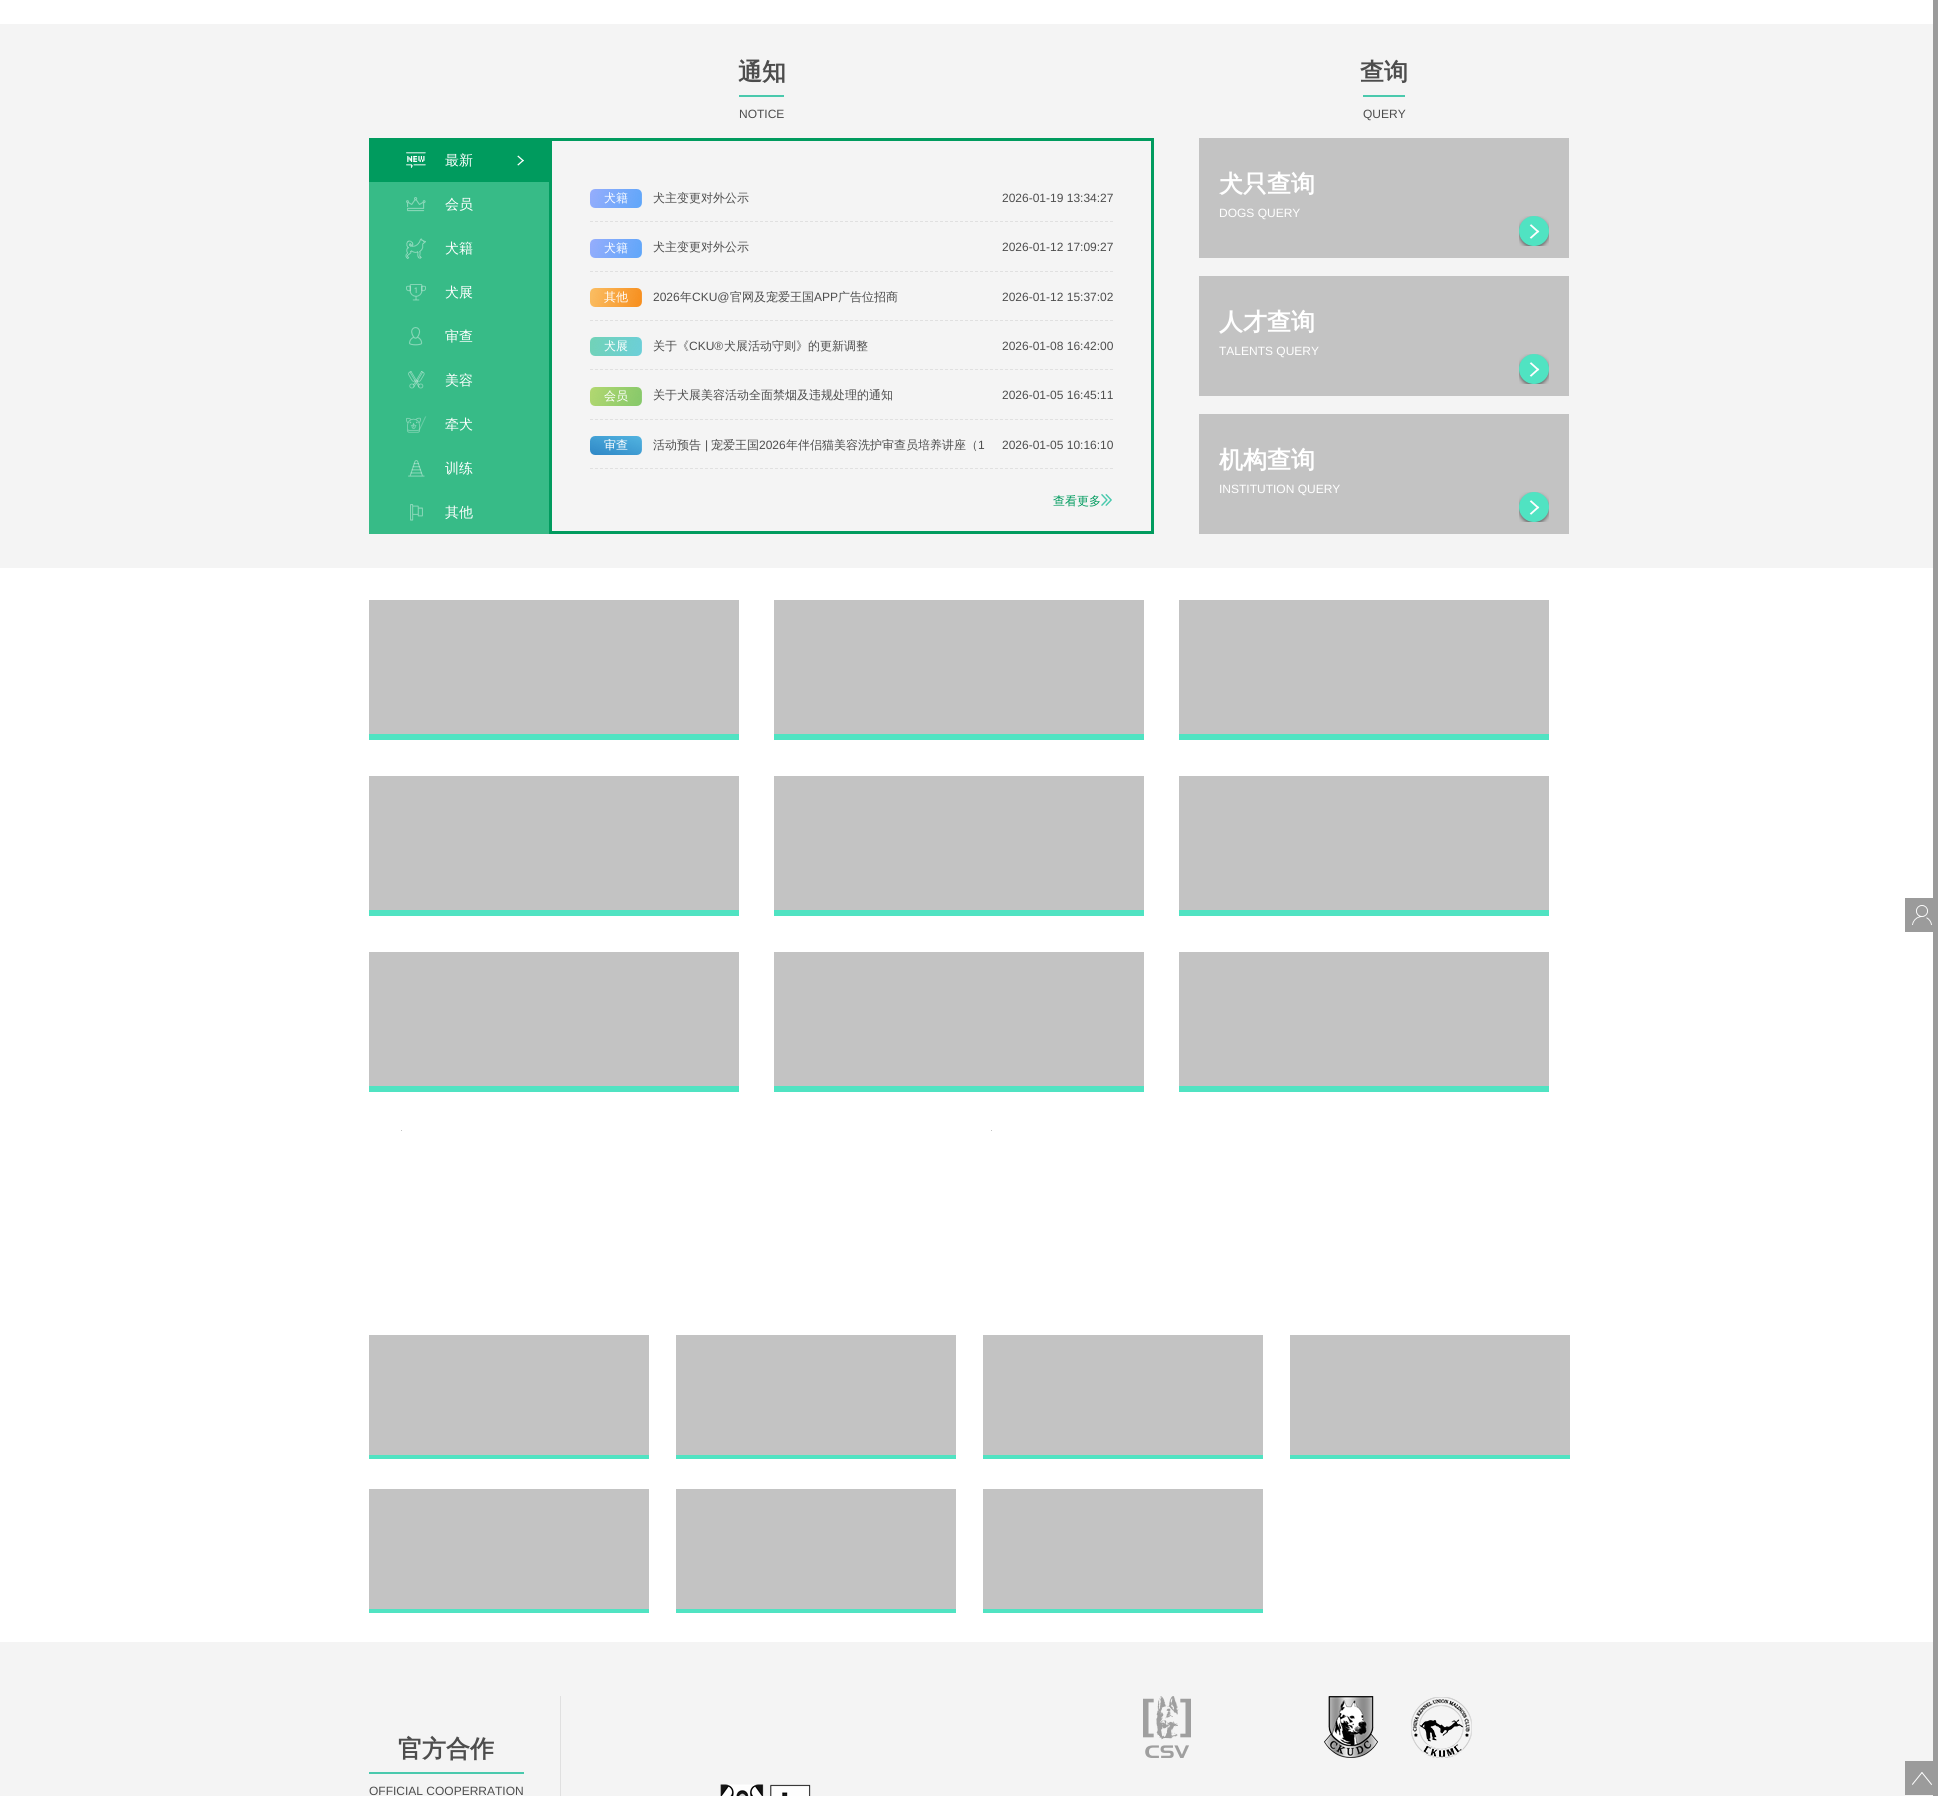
import math
import cairo

surface = cairo.ImageSurface(cairo.FORMAT_RGB24, 1938, 1796)
ctx = cairo.Context(surface)
options = cairo.FontOptions()
options.set_hint_metrics(cairo.HINT_METRICS_OFF)
options.set_hint_style(cairo.HINT_STYLE_NONE)
ctx.set_font_options(options)
ctx.set_miter_limit(4)


def picture(path, x, y, w, h):
    ctx.save()
    ctx.set_source_surface(cairo.ImageSurface.create_from_png(path), x, y)
    ctx.rectangle(x, y, w, h)
    ctx.fill()
    ctx.restore()


ctx.set_source_rgb(1, 1, 1)
ctx.paint()
ctx.set_source_rgb(0.957, 0.957, 0.957)
ctx.rectangle(0, 24, 1933, 544)
ctx.fill()
ctx.select_font_face("WenQuanYi Zen Hei", cairo.FONT_SLANT_NORMAL, cairo.FONT_WEIGHT_BOLD)
ctx.set_font_size(24)
ctx.set_source_rgb(0.302, 0.302, 0.302)
ctx.move_to(738, 80)
ctx.show_text("通知")
ctx.set_source_rgb(0.29, 0.788, 0.678)
ctx.rectangle(739, 95, 45, 2)
ctx.fill()
ctx.select_font_face("Liberation Sans")
ctx.set_font_size(12)
ctx.set_source_rgb(0.302, 0.302, 0.302)
ctx.move_to(739, 118)
ctx.show_text("NOTICE")
ctx.set_source_rgb(0, 0.608, 0.369)
ctx.rectangle(369, 138, 180, 44)
ctx.fill()
picture("img1.png", 406, 152, 20, 16)
ctx.select_font_face("WenQuanYi Zen Hei Medium")
ctx.set_font_size(14)
ctx.set_source_rgb(1, 1, 1)
ctx.move_to(445, 165)
ctx.show_text("最新")
picture("img2.png", 517, 155, 7, 11)
ctx.set_source_rgb(0.216, 0.733, 0.529)
ctx.rectangle(369, 182, 180, 352)
ctx.fill()
picture("img3.png", 406, 197, 20, 15)
ctx.set_source_rgb(1, 1, 1)
ctx.move_to(445, 209)
ctx.show_text("会员")
picture("img4.png", 405, 238, 21, 21)
ctx.move_to(445, 253)
ctx.show_text("犬籍")
picture("img5.png", 406, 284, 20, 17)
ctx.move_to(445, 297)
ctx.show_text("犬展")
picture("img6.png", 409, 327, 14, 19)
ctx.move_to(445, 341)
ctx.show_text("审查")
picture("img7.png", 408, 371, 17, 18)
ctx.move_to(445, 385)
ctx.show_text("美容")
picture("img8.png", 406, 416, 21, 17)
ctx.move_to(445, 429)
ctx.show_text("牵犬")
picture("img9.png", 408, 460, 17, 17)
ctx.move_to(445, 473)
ctx.show_text("训练")
picture("img10.png", 410, 504, 13, 17)
ctx.move_to(445, 517)
ctx.show_text("其他")
ctx.rectangle(550.5, 139.5, 602, 393)
ctx.set_source_rgb(0, 0.608, 0.369)
ctx.set_line_width(3)
ctx.stroke()
ctx.new_path()
ctx.move_to(590, 221.5)
ctx.line_to(1113, 221.5)
ctx.set_source_rgb(0.878, 0.878, 0.878)
ctx.set_line_width(1)
ctx.set_dash([3, 2])
ctx.stroke()
picture("img11.png", 590, 189, 52, 19)
ctx.set_font_size(12)
ctx.set_source_rgb(1, 1, 1)
ctx.move_to(604, 202)
ctx.show_text("犬籍")
ctx.set_source_rgb(0.302, 0.302, 0.302)
ctx.move_to(653, 202)
ctx.show_text("犬主变更对外公示")
ctx.select_font_face("Liberation Sans")
ctx.move_to(1002, 202)
ctx.show_text("2026-01-19 13:34:27")
ctx.new_path()
ctx.move_to(590, 271.5)
ctx.line_to(1113, 271.5)
ctx.set_source_rgb(0.878, 0.878, 0.878)
ctx.stroke()
picture("img11.png", 590, 239, 52, 19)
ctx.select_font_face("WenQuanYi Zen Hei Medium")
ctx.set_source_rgb(1, 1, 1)
ctx.move_to(604, 252)
ctx.show_text("犬籍")
ctx.set_source_rgb(0.302, 0.302, 0.302)
ctx.move_to(653, 251)
ctx.show_text("犬主变更对外公示")
ctx.select_font_face("Liberation Sans")
ctx.move_to(1002, 251)
ctx.show_text("2026-01-12 17:09:27")
ctx.new_path()
ctx.move_to(590, 320.5)
ctx.line_to(1113, 320.5)
ctx.set_source_rgb(0.878, 0.878, 0.878)
ctx.stroke()
picture("img12.png", 590, 288, 52, 19)
ctx.select_font_face("WenQuanYi Zen Hei Medium")
ctx.set_source_rgb(1, 1, 1)
ctx.move_to(604, 301)
ctx.show_text("其他")
ctx.select_font_face("Liberation Sans")
ctx.set_source_rgb(0.302, 0.302, 0.302)
ctx.move_to(653, 301)
ctx.show_text("2026")
ctx.select_font_face("WenQuanYi Zen Hei Medium")
ctx.move_to(680, 301)
ctx.show_text("年")
ctx.select_font_face("Liberation Sans")
ctx.move_to(692, 301)
ctx.show_text("CKU@")
ctx.select_font_face("WenQuanYi Zen Hei Medium")
ctx.move_to(730, 301)
ctx.show_text("官网及宠爱王国")
ctx.select_font_face("Liberation Sans")
ctx.move_to(814, 301)
ctx.show_text("APP")
ctx.select_font_face("WenQuanYi Zen Hei Medium")
ctx.move_to(838, 301)
ctx.show_text("广告位招商")
ctx.select_font_face("Liberation Sans")
ctx.move_to(1002, 301)
ctx.show_text("2026-01-12 15:37:02")
ctx.new_path()
ctx.move_to(590, 369.5)
ctx.line_to(1113, 369.5)
ctx.set_source_rgb(0.878, 0.878, 0.878)
ctx.stroke()
picture("img13.png", 590, 337, 52, 19)
ctx.select_font_face("WenQuanYi Zen Hei Medium")
ctx.set_source_rgb(1, 1, 1)
ctx.move_to(604, 350)
ctx.show_text("犬展")
ctx.set_source_rgb(0.302, 0.302, 0.302)
ctx.move_to(653, 350)
ctx.show_text("关于《")
ctx.select_font_face("Liberation Sans")
ctx.move_to(689, 350)
ctx.show_text("CKU®")
ctx.select_font_face("WenQuanYi Zen Hei Medium")
ctx.move_to(724, 350)
ctx.show_text("犬展活动守则》的更新调整")
ctx.select_font_face("Liberation Sans")
ctx.move_to(1002, 350)
ctx.show_text("2026-01-08 16:42:00")
ctx.new_path()
ctx.move_to(590, 419.5)
ctx.line_to(1113, 419.5)
ctx.set_source_rgb(0.878, 0.878, 0.878)
ctx.stroke()
picture("img14.png", 590, 387, 52, 19)
ctx.select_font_face("WenQuanYi Zen Hei Medium")
ctx.set_source_rgb(1, 1, 1)
ctx.move_to(604, 400)
ctx.show_text("会员")
ctx.set_source_rgb(0.302, 0.302, 0.302)
ctx.move_to(653, 399)
ctx.show_text("关于犬展美容活动全面禁烟及违规处理的通知")
ctx.select_font_face("Liberation Sans")
ctx.move_to(1002, 399)
ctx.show_text("2026-01-05 16:45:11")
ctx.new_path()
ctx.move_to(590, 468.5)
ctx.line_to(1113, 468.5)
ctx.set_source_rgb(0.878, 0.878, 0.878)
ctx.stroke()
picture("img15.png", 590, 436, 52, 19)
ctx.select_font_face("WenQuanYi Zen Hei Medium")
ctx.set_source_rgb(1, 1, 1)
ctx.move_to(604, 449)
ctx.show_text("审查")
ctx.set_source_rgb(0.302, 0.302, 0.302)
ctx.move_to(653, 449)
ctx.show_text("活动预告")
ctx.select_font_face("Liberation Sans")
ctx.move_to(705, 449)
ctx.show_text("|")
ctx.select_font_face("WenQuanYi Zen Hei Medium")
ctx.move_to(711, 449)
ctx.show_text("宠爱王国")
ctx.select_font_face("Liberation Sans")
ctx.move_to(759, 449)
ctx.show_text("2026")
ctx.select_font_face("WenQuanYi Zen Hei Medium")
ctx.move_to(786, 449)
ctx.show_text("年伴侣猫美容洗护审查员培养讲座（")
ctx.select_font_face("Liberation Sans")
ctx.move_to(978, 449)
ctx.show_text("1")
ctx.move_to(1002, 449)
ctx.show_text("2026-01-05 10:16:10")
ctx.select_font_face("WenQuanYi Zen Hei Medium")
ctx.set_source_rgb(0, 0.608, 0.369)
ctx.move_to(1053, 505)
ctx.show_text("查看更多")
picture("img16.png", 1101, 494, 11, 12)
ctx.select_font_face("WenQuanYi Zen Hei", cairo.FONT_SLANT_NORMAL, cairo.FONT_WEIGHT_BOLD)
ctx.set_font_size(24)
ctx.set_source_rgb(0.302, 0.302, 0.302)
ctx.move_to(1360, 80)
ctx.show_text("查询")
ctx.set_source_rgb(0.29, 0.788, 0.678)
ctx.rectangle(1363, 95, 42, 2)
ctx.fill()
ctx.select_font_face("Liberation Sans")
ctx.set_font_size(12)
ctx.set_source_rgb(0.302, 0.302, 0.302)
ctx.move_to(1363, 118)
ctx.show_text("QUERY")
ctx.set_source_rgb(0.765, 0.765, 0.765)
ctx.rectangle(1199, 138, 370, 120)
ctx.fill()
ctx.select_font_face("WenQuanYi Zen Hei", cairo.FONT_SLANT_NORMAL, cairo.FONT_WEIGHT_BOLD)
ctx.set_font_size(24)
ctx.set_source_rgb(1, 1, 1)
ctx.move_to(1219, 192)
ctx.show_text("犬只查询")
ctx.select_font_face("Liberation Sans")
ctx.set_font_size(12)
ctx.move_to(1219, 217)
ctx.show_text("DOGS QUERY")
picture("img17.png", 1519, 216, 30, 30)
ctx.set_source_rgb(0.765, 0.765, 0.765)
ctx.rectangle(1199, 276, 370, 120)
ctx.fill()
ctx.select_font_face("WenQuanYi Zen Hei", cairo.FONT_SLANT_NORMAL, cairo.FONT_WEIGHT_BOLD)
ctx.set_font_size(24)
ctx.set_source_rgb(1, 1, 1)
ctx.move_to(1219, 330)
ctx.show_text("人才查询")
ctx.select_font_face("Liberation Sans")
ctx.set_font_size(12)
ctx.move_to(1219, 355)
ctx.show_text("TALENTS QUERY")
picture("img17.png", 1519, 354, 30, 30)
ctx.set_source_rgb(0.765, 0.765, 0.765)
ctx.rectangle(1199, 414, 370, 120)
ctx.fill()
ctx.select_font_face("WenQuanYi Zen Hei", cairo.FONT_SLANT_NORMAL, cairo.FONT_WEIGHT_BOLD)
ctx.set_font_size(24)
ctx.set_source_rgb(1, 1, 1)
ctx.move_to(1219, 468)
ctx.show_text("机构查询")
ctx.select_font_face("Liberation Sans")
ctx.set_font_size(12)
ctx.move_to(1219, 493)
ctx.show_text("INSTITUTION QUERY")
picture("img17.png", 1519, 492, 30, 30)
ctx.set_source_rgb(0.314, 0.89, 0.761)
ctx.rectangle(369, 734, 370, 6)
ctx.fill()
ctx.set_source_rgb(0.765, 0.765, 0.765)
ctx.rectangle(369, 600, 370, 134)
ctx.fill()
ctx.set_source_rgb(0.314, 0.89, 0.761)
ctx.rectangle(774, 734, 370, 6)
ctx.fill()
ctx.set_source_rgb(0.765, 0.765, 0.765)
ctx.rectangle(774, 600, 370, 134)
ctx.fill()
ctx.set_source_rgb(0.314, 0.89, 0.761)
ctx.rectangle(1179, 734, 370, 6)
ctx.fill()
ctx.set_source_rgb(0.765, 0.765, 0.765)
ctx.rectangle(1179, 600, 370, 134)
ctx.fill()
ctx.set_source_rgb(0.314, 0.89, 0.761)
ctx.rectangle(369, 910, 370, 6)
ctx.fill()
ctx.set_source_rgb(0.765, 0.765, 0.765)
ctx.rectangle(369, 776, 370, 134)
ctx.fill()
ctx.set_source_rgb(0.314, 0.89, 0.761)
ctx.rectangle(774, 910, 370, 6)
ctx.fill()
ctx.set_source_rgb(0.765, 0.765, 0.765)
ctx.rectangle(774, 776, 370, 134)
ctx.fill()
ctx.set_source_rgb(0.314, 0.89, 0.761)
ctx.rectangle(1179, 910, 370, 6)
ctx.fill()
ctx.set_source_rgb(0.765, 0.765, 0.765)
ctx.rectangle(1179, 776, 370, 134)
ctx.fill()
ctx.set_source_rgb(0.314, 0.89, 0.761)
ctx.rectangle(369, 1086, 370, 6)
ctx.fill()
ctx.set_source_rgb(0.765, 0.765, 0.765)
ctx.rectangle(369, 952, 370, 134)
ctx.fill()
ctx.set_source_rgb(0.314, 0.89, 0.761)
ctx.rectangle(774, 1086, 370, 6)
ctx.fill()
ctx.set_source_rgb(0.765, 0.765, 0.765)
ctx.rectangle(774, 952, 370, 134)
ctx.fill()
ctx.set_source_rgb(0.314, 0.89, 0.761)
ctx.rectangle(1179, 1086, 370, 6)
ctx.fill()
ctx.set_source_rgb(0.765, 0.765, 0.765)
ctx.rectangle(1179, 952, 370, 134)
ctx.fill()
ctx.rectangle(401, 1130, 1, 1)
ctx.fill()
ctx.rectangle(991, 1130, 1, 1)
ctx.fill()
ctx.set_source_rgb(0.314, 0.89, 0.761)
ctx.rectangle(369, 1455, 280, 4)
ctx.fill()
ctx.set_source_rgb(0.765, 0.765, 0.765)
ctx.rectangle(369, 1335, 280, 120)
ctx.fill()
ctx.set_source_rgb(0.314, 0.89, 0.761)
ctx.rectangle(676, 1455, 280, 4)
ctx.fill()
ctx.set_source_rgb(0.765, 0.765, 0.765)
ctx.rectangle(676, 1335, 280, 120)
ctx.fill()
ctx.set_source_rgb(0.314, 0.89, 0.761)
ctx.rectangle(983, 1455, 280, 4)
ctx.fill()
ctx.set_source_rgb(0.765, 0.765, 0.765)
ctx.rectangle(983, 1335, 280, 120)
ctx.fill()
ctx.set_source_rgb(0.314, 0.89, 0.761)
ctx.rectangle(1290, 1455, 280, 4)
ctx.fill()
ctx.set_source_rgb(0.765, 0.765, 0.765)
ctx.rectangle(1290, 1335, 280, 120)
ctx.fill()
ctx.set_source_rgb(0.314, 0.89, 0.761)
ctx.rectangle(369, 1609, 280, 4)
ctx.fill()
ctx.set_source_rgb(0.765, 0.765, 0.765)
ctx.rectangle(369, 1489, 280, 120)
ctx.fill()
ctx.set_source_rgb(0.314, 0.89, 0.761)
ctx.rectangle(676, 1609, 280, 4)
ctx.fill()
ctx.set_source_rgb(0.765, 0.765, 0.765)
ctx.rectangle(676, 1489, 280, 120)
ctx.fill()
ctx.set_source_rgb(0.314, 0.89, 0.761)
ctx.rectangle(983, 1609, 280, 4)
ctx.fill()
ctx.set_source_rgb(0.765, 0.765, 0.765)
ctx.rectangle(983, 1489, 280, 120)
ctx.fill()
ctx.set_source_rgb(0.957, 0.957, 0.957)
ctx.rectangle(0, 1642, 1933, 154)
ctx.fill()
ctx.set_source_rgb(0.878, 0.878, 0.878)
ctx.rectangle(560, 1696, 1, 100)
ctx.fill()
ctx.select_font_face("WenQuanYi Zen Hei", cairo.FONT_SLANT_NORMAL, cairo.FONT_WEIGHT_BOLD)
ctx.set_font_size(24)
ctx.set_source_rgb(0.302, 0.302, 0.302)
ctx.move_to(398, 1757)
ctx.show_text("官方合作")
ctx.set_source_rgb(0.29, 0.788, 0.678)
ctx.rectangle(369, 1772, 155, 2)
ctx.fill()
ctx.select_font_face("Liberation Sans")
ctx.set_font_size(12)
ctx.set_source_rgb(0.302, 0.302, 0.302)
ctx.move_to(369, 1795)
ctx.show_text("OFFICIAL COOPERRATION")
picture("img18.png", 1143, 1696, 48, 62)
picture("img19.png", 1324, 1696, 54, 62)
picture("img20.png", 1411, 1697, 61, 61)
picture("img21.png", 720, 1784, 91, 12)
ctx.set_source_rgb(0.608, 0.608, 0.608)
ctx.rectangle(1933, 0, 5, 1796)
ctx.fill()
ctx.rectangle(1905, 898, 28, 34)
ctx.fill()
picture("img22.png", 1912, 905, 20, 20)
ctx.rectangle(1905, 1761, 28, 34)
ctx.fill()
picture("img23.png", 1912, 1772, 20, 13)
surface.write_to_png("page.png")
